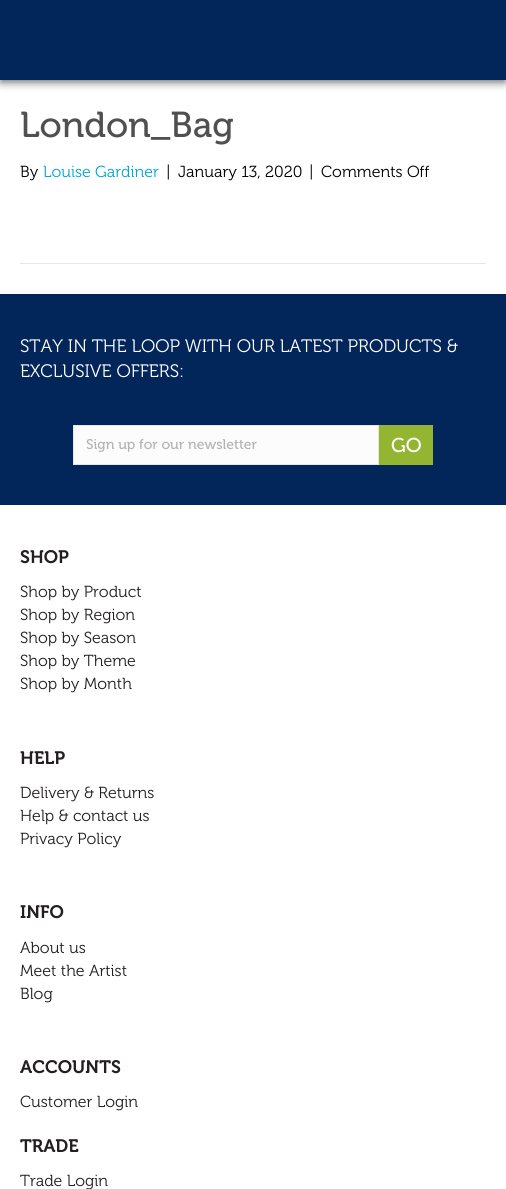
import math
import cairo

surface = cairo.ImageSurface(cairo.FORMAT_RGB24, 506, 1189)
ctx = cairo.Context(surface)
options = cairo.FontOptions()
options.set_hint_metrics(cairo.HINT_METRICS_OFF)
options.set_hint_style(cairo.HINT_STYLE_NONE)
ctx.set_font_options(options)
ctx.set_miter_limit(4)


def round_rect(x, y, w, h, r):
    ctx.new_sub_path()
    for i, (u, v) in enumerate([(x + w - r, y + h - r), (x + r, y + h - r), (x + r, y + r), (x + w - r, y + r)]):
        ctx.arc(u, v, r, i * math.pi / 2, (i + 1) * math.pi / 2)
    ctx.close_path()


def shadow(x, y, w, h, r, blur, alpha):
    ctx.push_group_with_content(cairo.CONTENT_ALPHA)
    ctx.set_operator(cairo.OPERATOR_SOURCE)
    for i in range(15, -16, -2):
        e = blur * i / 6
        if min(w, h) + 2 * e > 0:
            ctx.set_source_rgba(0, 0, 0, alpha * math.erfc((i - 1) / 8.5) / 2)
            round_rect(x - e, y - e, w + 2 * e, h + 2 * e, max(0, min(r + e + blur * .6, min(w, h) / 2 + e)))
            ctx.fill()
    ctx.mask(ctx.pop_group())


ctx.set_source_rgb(1, 1, 1)
ctx.paint()
ctx.set_source_rgb(0.4, 0.4, 0.4)
shadow(1, 4, 504, 78, 0, 4.5, 1)
ctx.set_source_rgb(0.008, 0.149, 0.349)
ctx.rectangle(0, 0, 506, 80)
ctx.fill()
ctx.select_font_face("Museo")
ctx.set_font_size(36)
ctx.set_source_rgb(0.314, 0.314, 0.314)
ctx.move_to(20, 137)
ctx.show_text("London_Bag")
ctx.select_font_face("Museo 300 Light")
ctx.set_font_size(16)
ctx.set_source_rgb(0, 0, 0)
ctx.move_to(20, 177)
ctx.show_text("By")
ctx.set_source_rgb(0, 0.651, 0.831)
ctx.move_to(43, 177)
ctx.show_text("Louise Gardiner")
ctx.set_source_rgb(0, 0, 0)
ctx.move_to(166, 177)
ctx.show_text("|")
ctx.move_to(178, 177)
ctx.show_text("January 13, 2020")
ctx.move_to(309, 177)
ctx.show_text("|")
ctx.move_to(321, 177)
ctx.show_text("Comments Off")
ctx.set_source_rgb(0.902, 0.902, 0.902)
ctx.rectangle(20, 263, 466, 1)
ctx.fill()
ctx.set_source_rgb(0.008, 0.149, 0.353)
ctx.rectangle(0, 294, 506, 211)
ctx.fill()
ctx.set_font_size(18)
ctx.set_source_rgb(1, 1, 1)
ctx.move_to(20, 352)
ctx.show_text("STAY IN THE LOOP WITH OUR LATEST PRODUCTS &")
ctx.move_to(20, 377)
ctx.show_text("EXCLUSIVE OFFERS:")
ctx.set_source_rgb(0.988, 0.988, 0.988)
ctx.rectangle(73.5, 425.5, 305, 39)
ctx.fill_preserve()
ctx.set_source_rgb(0.902, 0.902, 0.902)
ctx.set_line_width(1)
ctx.stroke()
ctx.select_font_face("Museo")
ctx.set_font_size(14)
ctx.set_source_rgb(0.702, 0.702, 0.702)
ctx.move_to(86, 449)
ctx.show_text("Sign up for our newsletter")
ctx.set_source_rgb(0.58, 0.71, 0.192)
ctx.rectangle(379, 425, 54, 40)
ctx.fill()
ctx.set_font_size(20)
ctx.set_source_rgb(1, 1, 1)
ctx.move_to(391, 452)
ctx.show_text("GO")
ctx.select_font_face("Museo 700 SemiBold")
ctx.set_font_size(18)
ctx.set_source_rgb(0.137, 0.122, 0.125)
ctx.move_to(20, 563)
ctx.show_text("SHOP")
ctx.select_font_face("Museo 300 Light")
ctx.set_font_size(16)
ctx.move_to(20, 597)
ctx.show_text("Shop by Product")
ctx.move_to(20, 620)
ctx.show_text("Shop by Region")
ctx.move_to(20, 643)
ctx.show_text("Shop by Season")
ctx.move_to(20, 666)
ctx.show_text("Shop by Theme")
ctx.move_to(20, 689)
ctx.show_text("Shop by Month")
ctx.select_font_face("Museo 700 SemiBold")
ctx.set_font_size(18)
ctx.move_to(20, 764)
ctx.show_text("HELP")
ctx.select_font_face("Museo 300 Light")
ctx.set_font_size(16)
ctx.move_to(20, 798)
ctx.show_text("Delivery & Returns")
ctx.move_to(20, 821)
ctx.show_text("Help & contact us")
ctx.move_to(20, 844)
ctx.show_text("Privacy Policy")
ctx.select_font_face("Museo 700 SemiBold")
ctx.set_font_size(18)
ctx.move_to(20, 918)
ctx.show_text("INFO")
ctx.select_font_face("Museo 300 Light")
ctx.set_font_size(16)
ctx.move_to(20, 953)
ctx.show_text("About us")
ctx.move_to(20, 976)
ctx.show_text("Meet the Artist")
ctx.move_to(20, 999)
ctx.show_text("Blog")
ctx.select_font_face("Museo 700 SemiBold")
ctx.set_font_size(18)
ctx.move_to(20, 1073)
ctx.show_text("ACCOUNTS")
ctx.select_font_face("Museo 300 Light")
ctx.set_font_size(16)
ctx.move_to(20, 1107)
ctx.show_text("Customer Login")
ctx.select_font_face("Museo 700 SemiBold")
ctx.set_font_size(18)
ctx.move_to(20, 1152)
ctx.show_text("TRADE")
ctx.select_font_face("Museo 300 Light")
ctx.set_font_size(16)
ctx.move_to(20, 1186)
ctx.show_text("Trade Login")
surface.write_to_png("page.png")
